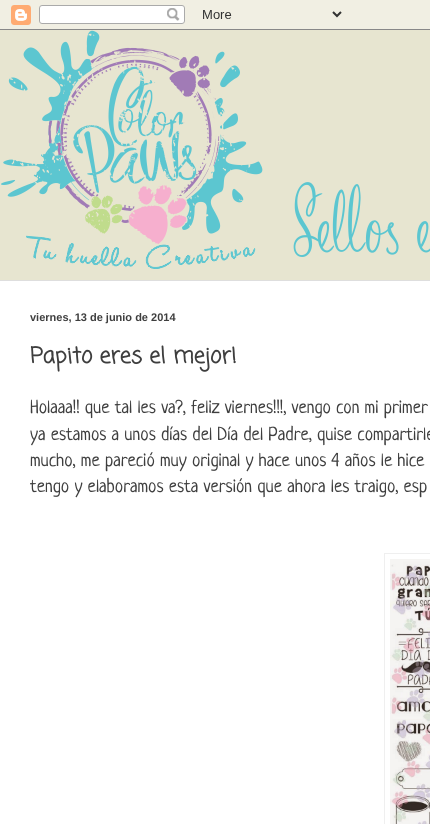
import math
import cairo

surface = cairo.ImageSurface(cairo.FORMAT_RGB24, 430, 824)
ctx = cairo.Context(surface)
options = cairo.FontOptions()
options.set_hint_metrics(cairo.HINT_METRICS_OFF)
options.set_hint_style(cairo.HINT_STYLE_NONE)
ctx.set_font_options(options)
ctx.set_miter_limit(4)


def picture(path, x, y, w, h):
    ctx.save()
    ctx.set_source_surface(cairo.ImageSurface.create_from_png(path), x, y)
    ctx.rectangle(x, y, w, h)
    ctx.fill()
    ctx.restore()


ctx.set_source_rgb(0.906, 0.898, 0.816)
ctx.paint()
picture("img1.png", 0, 0, 430, 30)
picture("img2.png", 1, 30, 429, 239)
ctx.set_source_rgb(1, 1, 1)
ctx.rectangle(0, 281, 430, 543)
ctx.fill()
ctx.set_source_rgb(0.871, 0.871, 0.871)
ctx.rectangle(0, 280, 430, 1)
ctx.fill()
ctx.select_font_face("Liberation Sans", cairo.FONT_SLANT_NORMAL, cairo.FONT_WEIGHT_BOLD)
ctx.set_font_size(11)
ctx.set_source_rgb(0.243, 0.243, 0.243)
ctx.move_to(30, 321)
ctx.show_text("viernes, 13 de junio de 2014")
ctx.select_font_face("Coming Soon", cairo.FONT_SLANT_NORMAL, cairo.FONT_WEIGHT_BOLD)
ctx.set_font_size(22)
ctx.move_to(30, 363)
ctx.show_text("Papito eres el mejor!")
ctx.select_font_face("Neucha")
ctx.set_font_size(18.7)
ctx.move_to(30, 413)
ctx.show_text("Holaaa!! que tal les va?, feliz viernes!!!, vengo con mi primer")
ctx.move_to(30, 440)
ctx.show_text("ya estamos a unos días del Día del Padre, quise compartirle")
ctx.move_to(30, 466)
ctx.show_text("mucho, me pareció muy original y hace unos 4 años le hice")
ctx.move_to(30, 492)
ctx.show_text("tengo y elaboramos esta versión que ahora les traigo, esp")
ctx.rectangle(384.5, 553.5, 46, 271)
ctx.set_source_rgb(0.937, 0.937, 0.937)
ctx.set_line_width(1)
ctx.stroke()
picture("img3.png", 390, 559, 40, 265)
surface.write_to_png("page.png")
